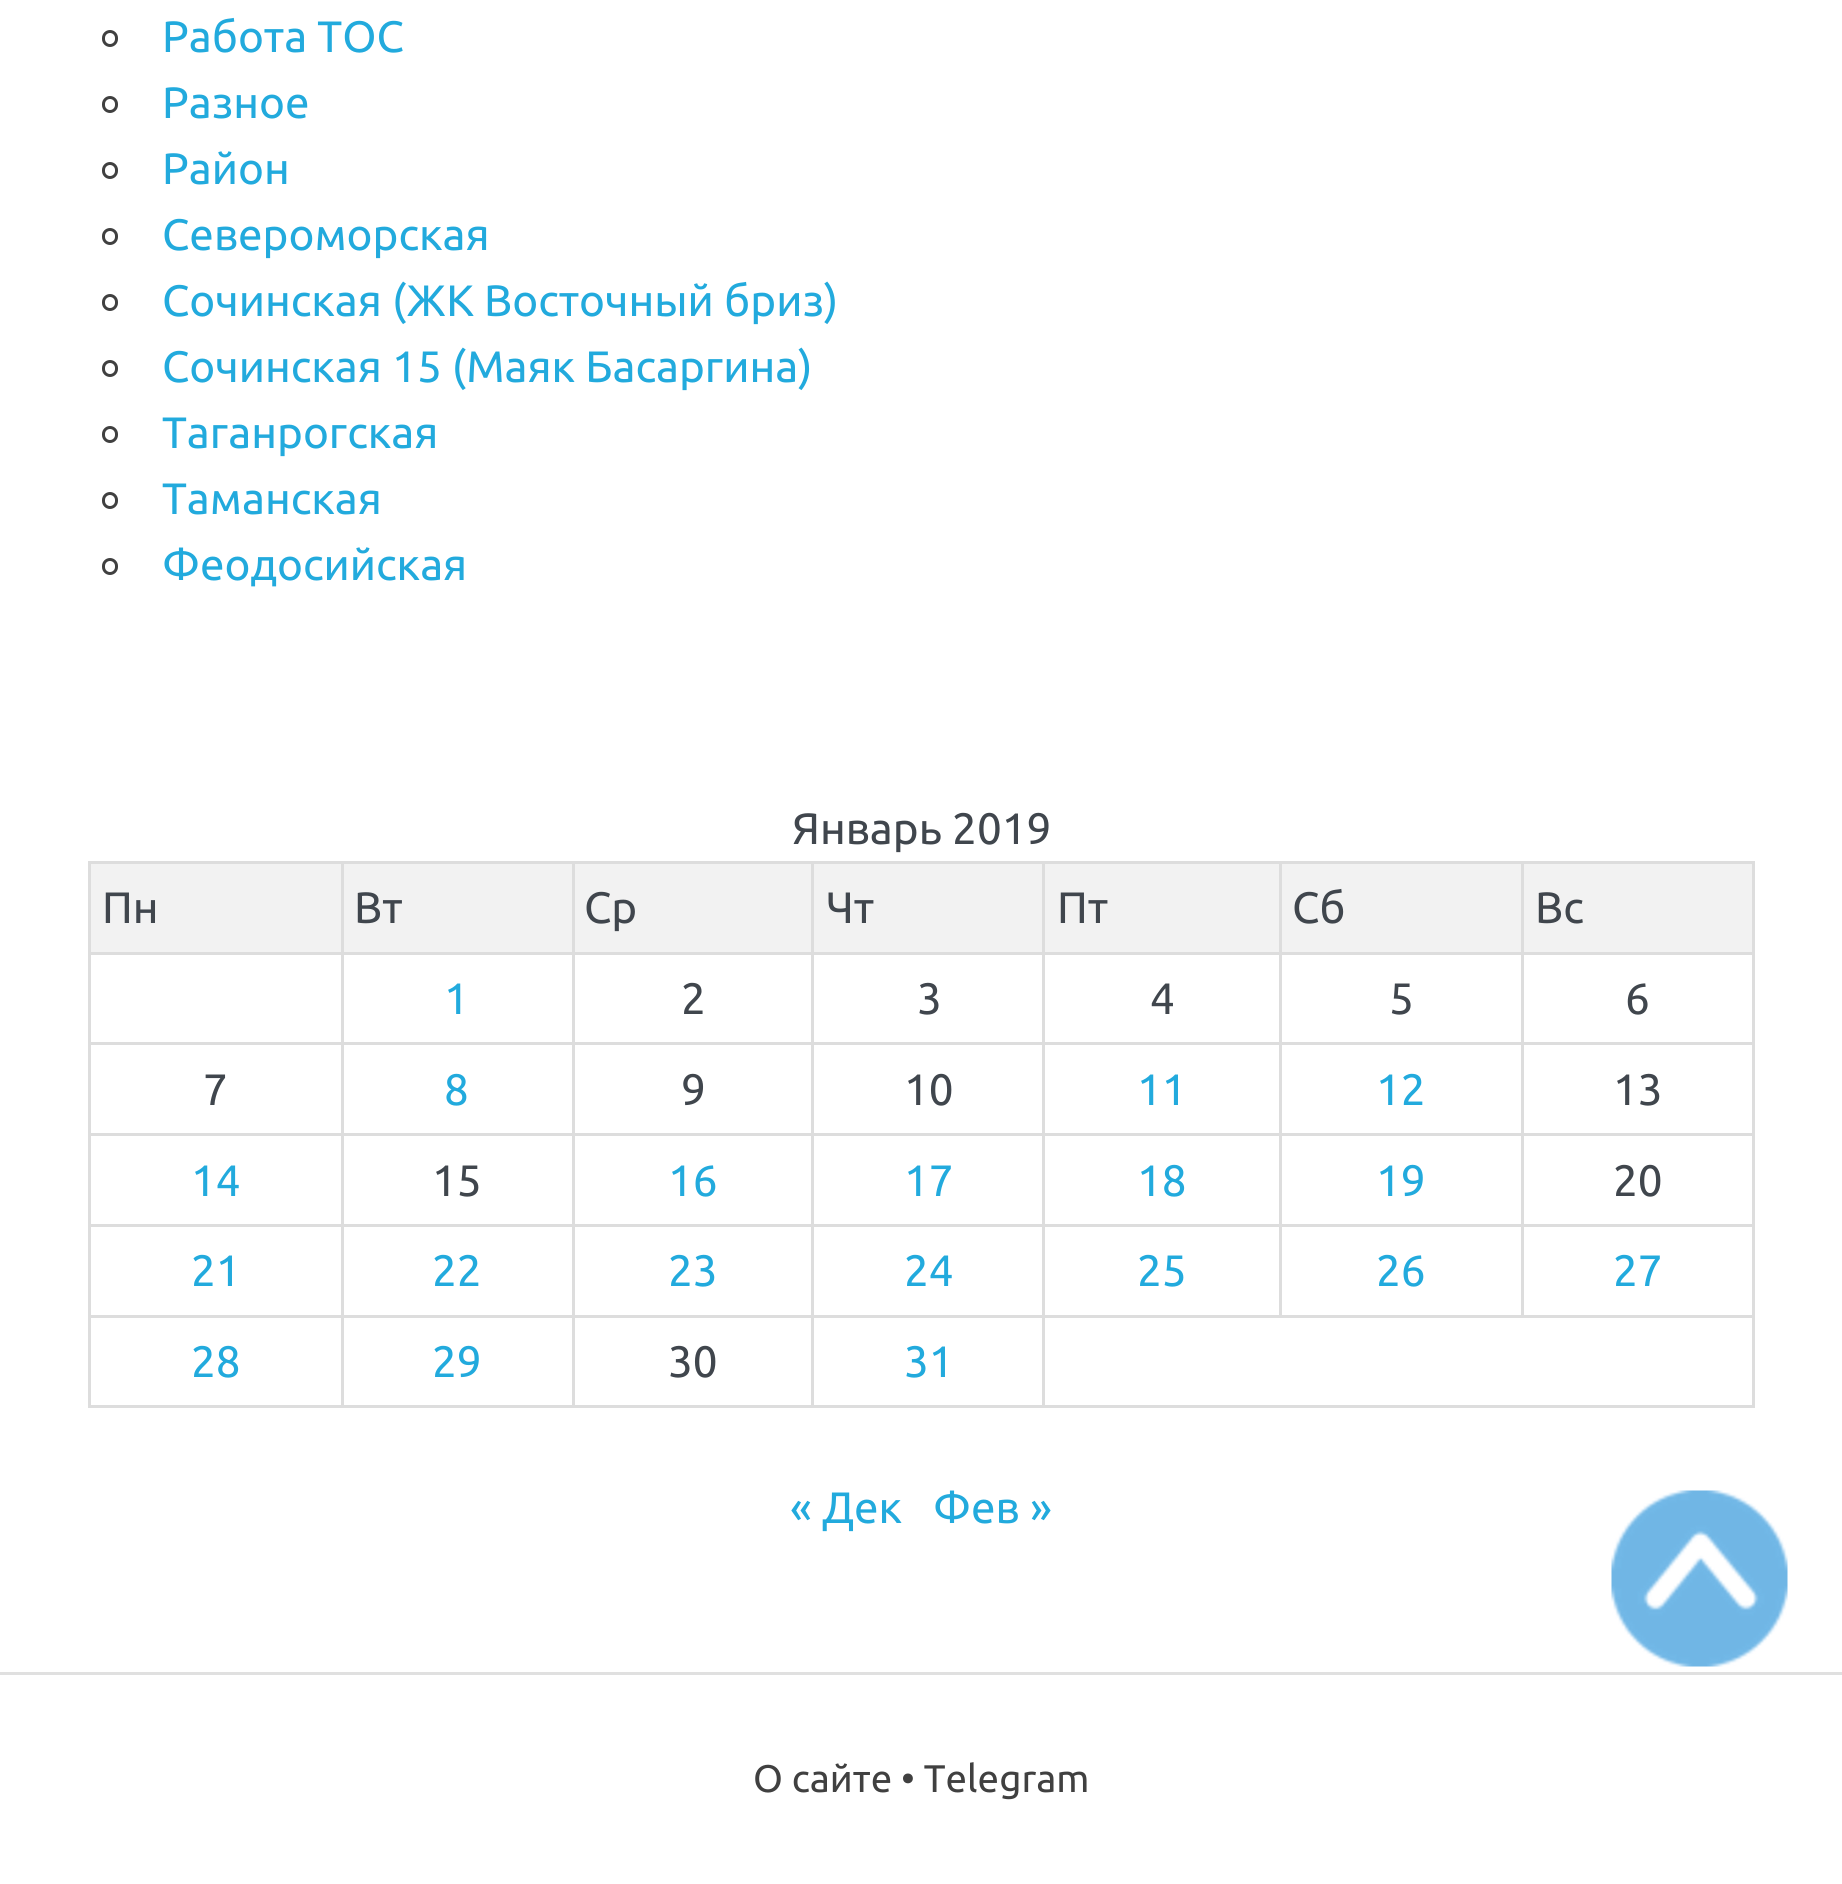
import math
import cairo

surface = cairo.ImageSurface(cairo.FORMAT_RGB24, 1842, 1884)
ctx = cairo.Context(surface)
options = cairo.FontOptions()
options.set_hint_metrics(cairo.HINT_METRICS_OFF)
options.set_hint_style(cairo.HINT_STYLE_NONE)
ctx.set_font_options(options)
ctx.set_miter_limit(4)


def round_rect(x, y, w, h, r):
    ctx.new_sub_path()
    for i, (u, v) in enumerate([(x + w - r, y + h - r), (x + r, y + h - r), (x + r, y + r), (x + w - r, y + r)]):
        ctx.arc(u, v, r, i * math.pi / 2, (i + 1) * math.pi / 2)
    ctx.close_path()


def picture(path, x, y, w, h):
    ctx.save()
    ctx.set_source_surface(cairo.ImageSurface.create_from_png(path), x, y)
    ctx.rectangle(x, y, w, h)
    ctx.fill()
    ctx.restore()


ctx.set_source_rgb(1, 1, 1)
ctx.paint()
round_rect(103.5, 31.5, 13, 14, 6.5)
ctx.set_source_rgb(0.251, 0.251, 0.251)
ctx.set_line_width(3)
ctx.stroke()
ctx.select_font_face("Ubuntu")
ctx.set_font_size(44)
ctx.set_source_rgb(0.133, 0.667, 0.867)
ctx.move_to(162, 52)
ctx.show_text("Работа ТОС")
round_rect(103.5, 97.5, 13, 14, 6.5)
ctx.set_source_rgb(0.251, 0.251, 0.251)
ctx.stroke()
ctx.set_source_rgb(0.133, 0.667, 0.867)
ctx.move_to(162, 118)
ctx.show_text("Разное")
round_rect(103.5, 163.5, 13, 14, 6.5)
ctx.set_source_rgb(0.251, 0.251, 0.251)
ctx.stroke()
ctx.set_source_rgb(0.133, 0.667, 0.867)
ctx.move_to(162, 184)
ctx.show_text("Район")
round_rect(103.5, 229.5, 13, 14, 6.5)
ctx.set_source_rgb(0.251, 0.251, 0.251)
ctx.stroke()
ctx.set_source_rgb(0.133, 0.667, 0.867)
ctx.move_to(162, 250)
ctx.show_text("Североморская")
round_rect(103.5, 295.5, 13, 14, 6.5)
ctx.set_source_rgb(0.251, 0.251, 0.251)
ctx.stroke()
ctx.set_source_rgb(0.133, 0.667, 0.867)
ctx.move_to(162, 316)
ctx.show_text("Сочинская (ЖК Восточный бриз)")
round_rect(103.5, 361.5, 13, 14, 6.5)
ctx.set_source_rgb(0.251, 0.251, 0.251)
ctx.stroke()
ctx.set_source_rgb(0.133, 0.667, 0.867)
ctx.move_to(162, 382)
ctx.show_text("Сочинская 15 (Маяк Басаргина)")
round_rect(103.5, 427.5, 13, 14, 6.5)
ctx.set_source_rgb(0.251, 0.251, 0.251)
ctx.stroke()
ctx.set_source_rgb(0.133, 0.667, 0.867)
ctx.move_to(162, 448)
ctx.show_text("Таганрогская")
round_rect(103.5, 493.5, 13, 14, 6.5)
ctx.set_source_rgb(0.251, 0.251, 0.251)
ctx.stroke()
ctx.set_source_rgb(0.133, 0.667, 0.867)
ctx.move_to(162, 514)
ctx.show_text("Таманская")
round_rect(103.5, 559.5, 13, 14, 6.5)
ctx.set_source_rgb(0.251, 0.251, 0.251)
ctx.stroke()
ctx.set_source_rgb(0.133, 0.667, 0.867)
ctx.move_to(162, 580)
ctx.show_text("Феодосийская")
ctx.set_source_rgb(0.251, 0.275, 0.302)
ctx.move_to(792, 844)
ctx.show_text("Январь 2019")
ctx.set_source_rgb(0.949, 0.949, 0.949)
ctx.rectangle(91, 864, 250, 88)
ctx.fill()
ctx.set_source_rgb(0.867, 0.867, 0.867)
ctx.rectangle(1521, 861, 234, 3)
ctx.fill()
ctx.rectangle(1521, 952, 234, 3)
ctx.fill()
ctx.rectangle(1521, 1042, 234, 3)
ctx.fill()
ctx.rectangle(1521, 1133, 234, 3)
ctx.fill()
ctx.rectangle(1521, 1224, 234, 3)
ctx.fill()
ctx.rectangle(1042, 1315, 713, 3)
ctx.fill()
ctx.rectangle(1521, 1224, 3, 93)
ctx.fill()
ctx.rectangle(1279, 1224, 245, 3)
ctx.fill()
ctx.rectangle(1521, 1133, 3, 94)
ctx.fill()
ctx.rectangle(1279, 1133, 245, 3)
ctx.fill()
ctx.rectangle(1521, 1042, 3, 94)
ctx.fill()
ctx.rectangle(1279, 1042, 245, 3)
ctx.fill()
ctx.rectangle(1521, 952, 3, 93)
ctx.fill()
ctx.rectangle(1279, 952, 245, 3)
ctx.fill()
ctx.rectangle(1521, 861, 3, 93)
ctx.fill()
ctx.rectangle(1279, 861, 245, 3)
ctx.fill()
ctx.rectangle(1279, 1224, 3, 93)
ctx.fill()
ctx.rectangle(1042, 1224, 240, 3)
ctx.fill()
ctx.rectangle(1279, 1133, 3, 94)
ctx.fill()
ctx.rectangle(1042, 1133, 240, 3)
ctx.fill()
ctx.rectangle(1279, 1042, 3, 94)
ctx.fill()
ctx.rectangle(1042, 1042, 240, 3)
ctx.fill()
ctx.rectangle(1279, 952, 3, 93)
ctx.fill()
ctx.rectangle(1042, 952, 240, 3)
ctx.fill()
ctx.rectangle(1279, 861, 3, 93)
ctx.fill()
ctx.rectangle(1042, 861, 240, 3)
ctx.fill()
ctx.rectangle(1752, 1315, 3, 93)
ctx.fill()
ctx.rectangle(1042, 1405, 713, 3)
ctx.fill()
ctx.rectangle(1042, 1315, 3, 93)
ctx.fill()
ctx.rectangle(811, 1315, 234, 3)
ctx.fill()
ctx.rectangle(1042, 1224, 3, 93)
ctx.fill()
ctx.rectangle(811, 1224, 234, 3)
ctx.fill()
ctx.rectangle(1042, 1133, 3, 94)
ctx.fill()
ctx.rectangle(811, 1133, 234, 3)
ctx.fill()
ctx.rectangle(1042, 1042, 3, 94)
ctx.fill()
ctx.rectangle(811, 1042, 234, 3)
ctx.fill()
ctx.rectangle(1042, 952, 3, 93)
ctx.fill()
ctx.rectangle(811, 952, 234, 3)
ctx.fill()
ctx.rectangle(1042, 861, 3, 93)
ctx.fill()
ctx.rectangle(811, 861, 234, 3)
ctx.fill()
ctx.rectangle(811, 1405, 234, 3)
ctx.fill()
ctx.rectangle(811, 1315, 3, 93)
ctx.fill()
ctx.rectangle(572, 1315, 242, 3)
ctx.fill()
ctx.rectangle(811, 1224, 3, 93)
ctx.fill()
ctx.rectangle(572, 1224, 242, 3)
ctx.fill()
ctx.rectangle(811, 1133, 3, 94)
ctx.fill()
ctx.rectangle(572, 1133, 242, 3)
ctx.fill()
ctx.rectangle(811, 1042, 3, 94)
ctx.fill()
ctx.rectangle(572, 1042, 242, 3)
ctx.fill()
ctx.rectangle(811, 952, 3, 93)
ctx.fill()
ctx.rectangle(572, 952, 242, 3)
ctx.fill()
ctx.rectangle(811, 861, 3, 93)
ctx.fill()
ctx.rectangle(572, 861, 242, 3)
ctx.fill()
ctx.rectangle(572, 1405, 242, 3)
ctx.fill()
ctx.rectangle(572, 1315, 3, 93)
ctx.fill()
ctx.rectangle(341, 1315, 234, 3)
ctx.fill()
ctx.rectangle(572, 1224, 3, 93)
ctx.fill()
ctx.rectangle(341, 1224, 234, 3)
ctx.fill()
ctx.rectangle(572, 1133, 3, 94)
ctx.fill()
ctx.rectangle(341, 1133, 234, 3)
ctx.fill()
ctx.rectangle(572, 1042, 3, 94)
ctx.fill()
ctx.rectangle(341, 1042, 234, 3)
ctx.fill()
ctx.rectangle(572, 952, 3, 93)
ctx.fill()
ctx.rectangle(341, 952, 234, 3)
ctx.fill()
ctx.rectangle(572, 861, 3, 93)
ctx.fill()
ctx.rectangle(341, 861, 234, 3)
ctx.fill()
ctx.rectangle(341, 1405, 234, 3)
ctx.fill()
ctx.rectangle(341, 1315, 3, 93)
ctx.fill()
ctx.rectangle(88, 1315, 256, 3)
ctx.fill()
ctx.rectangle(341, 1224, 3, 93)
ctx.fill()
ctx.rectangle(88, 1224, 256, 3)
ctx.fill()
ctx.rectangle(341, 1133, 3, 94)
ctx.fill()
ctx.rectangle(88, 1133, 256, 3)
ctx.fill()
ctx.rectangle(341, 1042, 3, 94)
ctx.fill()
ctx.rectangle(88, 1042, 256, 3)
ctx.fill()
ctx.rectangle(341, 952, 3, 93)
ctx.fill()
ctx.rectangle(88, 952, 256, 3)
ctx.fill()
ctx.rectangle(341, 861, 3, 93)
ctx.fill()
ctx.rectangle(88, 861, 256, 3)
ctx.fill()
ctx.rectangle(88, 1405, 256, 3)
ctx.fill()
ctx.rectangle(88, 1315, 3, 93)
ctx.fill()
ctx.rectangle(88, 1224, 3, 93)
ctx.fill()
ctx.rectangle(88, 1133, 3, 94)
ctx.fill()
ctx.rectangle(88, 1042, 3, 94)
ctx.fill()
ctx.rectangle(88, 952, 3, 93)
ctx.fill()
ctx.rectangle(88, 861, 3, 93)
ctx.fill()
ctx.set_source_rgb(0.251, 0.275, 0.302)
ctx.move_to(102, 923)
ctx.show_text("Пн")
ctx.set_source_rgb(0.949, 0.949, 0.949)
ctx.rectangle(344, 864, 228, 88)
ctx.fill()
ctx.set_source_rgb(0.251, 0.275, 0.302)
ctx.move_to(354, 923)
ctx.show_text("Вт")
ctx.set_source_rgb(0.949, 0.949, 0.949)
ctx.rectangle(575, 864, 236, 88)
ctx.fill()
ctx.set_source_rgb(0.251, 0.275, 0.302)
ctx.move_to(584, 923)
ctx.show_text("Ср")
ctx.set_source_rgb(0.949, 0.949, 0.949)
ctx.rectangle(814, 864, 228, 88)
ctx.fill()
ctx.set_source_rgb(0.251, 0.275, 0.302)
ctx.move_to(826, 923)
ctx.show_text("Чт")
ctx.set_source_rgb(0.949, 0.949, 0.949)
ctx.rectangle(1045, 864, 234, 88)
ctx.fill()
ctx.set_source_rgb(0.251, 0.275, 0.302)
ctx.move_to(1057, 923)
ctx.show_text("Пт")
ctx.set_source_rgb(0.949, 0.949, 0.949)
ctx.rectangle(1282, 864, 239, 88)
ctx.fill()
ctx.set_source_rgb(0.251, 0.275, 0.302)
ctx.move_to(1292, 923)
ctx.show_text("Сб")
ctx.set_source_rgb(0.949, 0.949, 0.949)
ctx.rectangle(1524, 864, 228, 88)
ctx.fill()
ctx.set_source_rgb(0.867, 0.867, 0.867)
ctx.rectangle(1752, 1224, 3, 93)
ctx.fill()
ctx.rectangle(1752, 1133, 3, 94)
ctx.fill()
ctx.rectangle(1752, 1042, 3, 94)
ctx.fill()
ctx.rectangle(1752, 952, 3, 93)
ctx.fill()
ctx.rectangle(1752, 861, 3, 93)
ctx.fill()
ctx.set_source_rgb(0.251, 0.275, 0.302)
ctx.move_to(1535, 923)
ctx.show_text("Вс")
ctx.set_source_rgb(0.133, 0.667, 0.867)
ctx.move_to(444, 1014)
ctx.show_text("1")
ctx.set_source_rgb(0.251, 0.275, 0.302)
ctx.move_to(681, 1014)
ctx.show_text("2")
ctx.move_to(917, 1014)
ctx.show_text("3")
ctx.move_to(1150, 1014)
ctx.show_text("4")
ctx.move_to(1389, 1014)
ctx.show_text("5")
ctx.move_to(1625, 1014)
ctx.show_text("6")
ctx.move_to(203, 1105)
ctx.show_text("7")
ctx.set_source_rgb(0.133, 0.667, 0.867)
ctx.move_to(444, 1105)
ctx.show_text("8")
ctx.set_source_rgb(0.251, 0.275, 0.302)
ctx.move_to(681, 1105)
ctx.show_text("9")
ctx.move_to(904, 1105)
ctx.show_text("10")
ctx.set_source_rgb(0.133, 0.667, 0.867)
ctx.move_to(1137, 1105)
ctx.show_text("11")
ctx.move_to(1376, 1105)
ctx.show_text("12")
ctx.set_source_rgb(0.251, 0.275, 0.302)
ctx.move_to(1613, 1105)
ctx.show_text("13")
ctx.set_source_rgb(0.133, 0.667, 0.867)
ctx.move_to(191, 1196)
ctx.show_text("14")
ctx.set_source_rgb(0.251, 0.275, 0.302)
ctx.move_to(432, 1196)
ctx.show_text("15")
ctx.set_source_rgb(0.133, 0.667, 0.867)
ctx.move_to(668, 1196)
ctx.show_text("16")
ctx.move_to(904, 1196)
ctx.show_text("17")
ctx.move_to(1137, 1196)
ctx.show_text("18")
ctx.move_to(1376, 1196)
ctx.show_text("19")
ctx.set_source_rgb(0.251, 0.275, 0.302)
ctx.move_to(1613, 1196)
ctx.show_text("20")
ctx.set_source_rgb(0.133, 0.667, 0.867)
ctx.move_to(191, 1286)
ctx.show_text("21")
ctx.move_to(432, 1286)
ctx.show_text("22")
ctx.move_to(668, 1286)
ctx.show_text("23")
ctx.move_to(904, 1286)
ctx.show_text("24")
ctx.move_to(1137, 1286)
ctx.show_text("25")
ctx.move_to(1376, 1286)
ctx.show_text("26")
ctx.move_to(1613, 1286)
ctx.show_text("27")
ctx.move_to(191, 1377)
ctx.show_text("28")
ctx.move_to(432, 1377)
ctx.show_text("29")
ctx.set_source_rgb(0.251, 0.275, 0.302)
ctx.move_to(668, 1377)
ctx.show_text("30")
ctx.set_source_rgb(0.133, 0.667, 0.867)
ctx.move_to(904, 1377)
ctx.show_text("31")
ctx.move_to(790, 1523)
ctx.show_text("« Дек")
ctx.move_to(933, 1523)
ctx.show_text("Фев »")
ctx.set_source_rgb(0.878, 0.878, 0.878)
ctx.rectangle(0, 1672, 1842, 3)
ctx.fill()
ctx.set_font_size(38.5)
ctx.set_source_rgb(0.251, 0.251, 0.251)
ctx.move_to(753, 1792)
ctx.show_text("О сайте • Telegram")
picture("img1.png", 1611, 1490, 177, 177)
surface.write_to_png("page.png")
